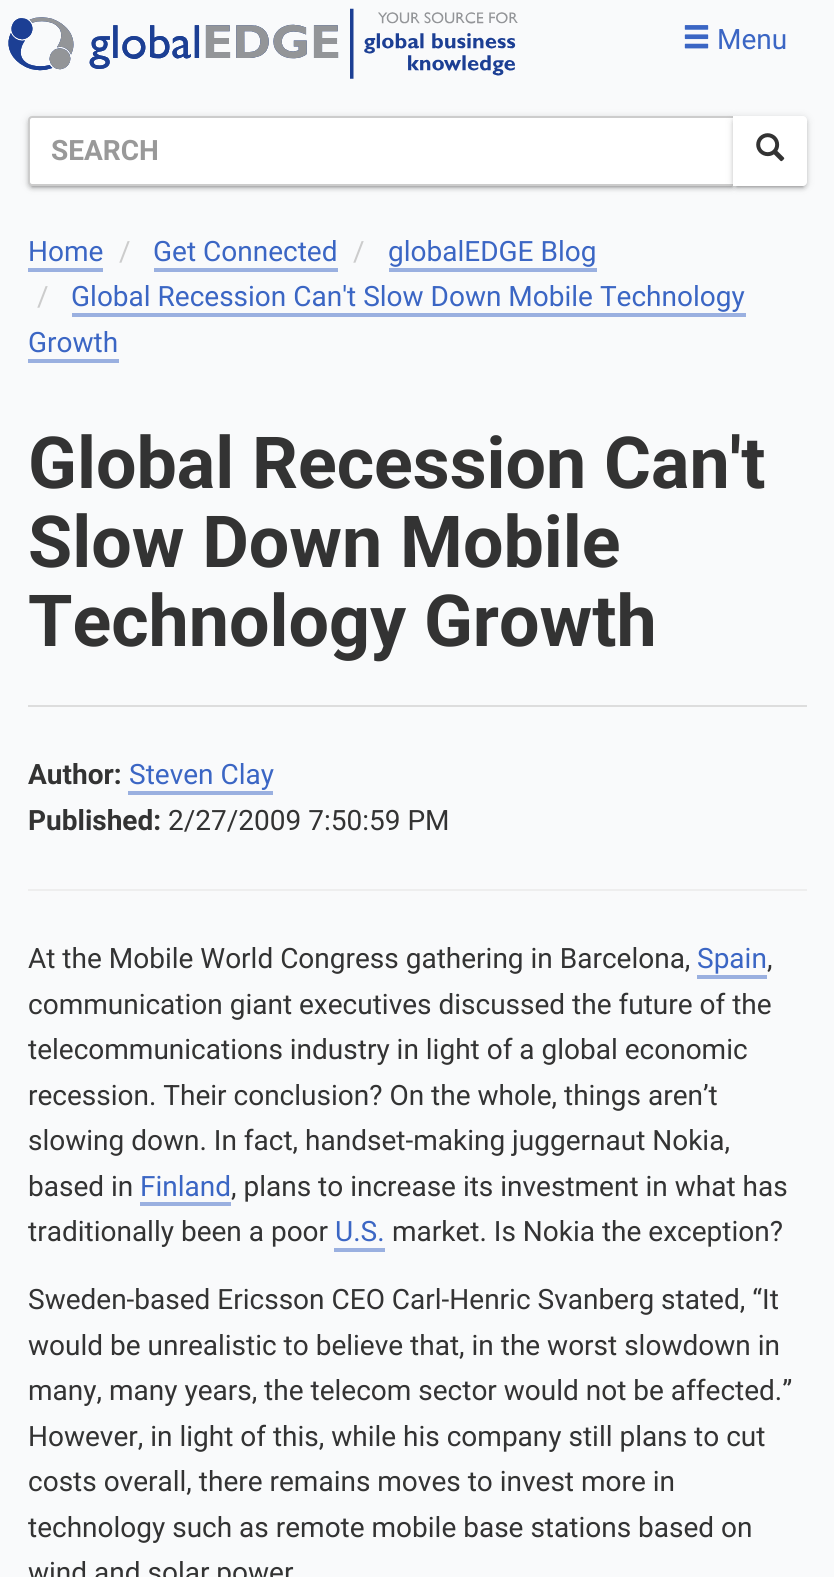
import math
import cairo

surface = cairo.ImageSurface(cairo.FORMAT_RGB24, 834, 1577)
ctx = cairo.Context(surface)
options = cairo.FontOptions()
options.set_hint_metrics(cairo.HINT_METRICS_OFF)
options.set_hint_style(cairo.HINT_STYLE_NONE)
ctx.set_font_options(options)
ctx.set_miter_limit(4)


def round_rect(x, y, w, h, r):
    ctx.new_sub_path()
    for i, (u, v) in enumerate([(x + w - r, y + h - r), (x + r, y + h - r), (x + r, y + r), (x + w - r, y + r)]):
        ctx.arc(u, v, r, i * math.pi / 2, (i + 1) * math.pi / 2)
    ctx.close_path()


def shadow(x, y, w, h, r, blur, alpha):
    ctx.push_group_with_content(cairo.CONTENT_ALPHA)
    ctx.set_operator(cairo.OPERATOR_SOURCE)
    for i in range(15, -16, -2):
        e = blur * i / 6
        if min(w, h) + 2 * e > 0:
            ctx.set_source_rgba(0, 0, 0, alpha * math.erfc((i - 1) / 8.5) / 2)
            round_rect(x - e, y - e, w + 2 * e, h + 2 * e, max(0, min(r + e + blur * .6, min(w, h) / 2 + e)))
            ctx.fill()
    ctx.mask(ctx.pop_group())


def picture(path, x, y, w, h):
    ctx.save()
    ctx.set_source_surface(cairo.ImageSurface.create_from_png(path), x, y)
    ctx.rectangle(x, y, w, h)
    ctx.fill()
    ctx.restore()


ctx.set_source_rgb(0.976, 0.98, 0.984)
ctx.paint()
picture("img1.png", 8, 8, 510, 71)
picture("img2.png", 684, 25, 25, 24)
ctx.select_font_face("Roboto")
ctx.set_font_size(28)
ctx.set_source_rgb(0.231, 0.4, 0.769)
ctx.move_to(717, 49)
ctx.show_text("Menu")
ctx.set_source_rgb(0, 0, 0)
shadow(28, 117, 707, 70, 4, 4.5, 0.12)
shadow(32, 124, 700, 63, 0, 1, 0.2)
shadow(28, 119, 707, 70, 4, 2, 0.14)
ctx.set_source_rgb(1, 1, 1)
ctx.new_path()
ctx.move_to(32, 117)
ctx.line_to(734, 117)
ctx.line_to(734, 185)
ctx.line_to(32, 185)
ctx.curve_to(30.5, 185, 29, 183.5, 29, 182)
ctx.line_to(29, 120)
ctx.curve_to(29, 118.5, 30.5, 117, 32, 117)
ctx.close_path()
ctx.fill_preserve()
ctx.set_source_rgb(0.8, 0.8, 0.8)
ctx.stroke()
ctx.select_font_face("Roboto", cairo.FONT_SLANT_NORMAL, cairo.FONT_WEIGHT_BOLD)
ctx.set_source_rgb(0.6, 0.6, 0.6)
ctx.move_to(51, 160)
ctx.show_text("SEARCH")
ctx.set_source_rgb(0, 0, 0)
shadow(733, 117, 74, 70, 4, 4.5, 0.12)
shadow(737, 124, 66, 63, 0, 1, 0.2)
shadow(733, 119, 74, 70, 4, 2, 0.14)
ctx.set_source_rgb(1, 1, 1)
ctx.new_path()
ctx.move_to(733, 116)
ctx.line_to(803, 116)
ctx.curve_to(805, 116, 807, 118, 807, 120)
ctx.line_to(807, 182)
ctx.curve_to(807, 184, 805, 186, 803, 186)
ctx.line_to(733, 186)
ctx.close_path()
ctx.fill()
picture("img3.png", 756, 133, 29, 29)
ctx.select_font_face("Roboto")
ctx.set_source_rgb(0.231, 0.4, 0.769)
ctx.move_to(28, 261)
ctx.show_text("Home")
ctx.set_source_rgb(0.604, 0.69, 0.878)
ctx.rectangle(28, 268, 75, 4)
ctx.fill()
ctx.set_source_rgb(0.8, 0.8, 0.8)
ctx.move_to(119, 261)
ctx.show_text("/")
ctx.set_source_rgb(0.231, 0.4, 0.769)
ctx.move_to(153, 261)
ctx.show_text("Get Connected")
ctx.set_source_rgb(0.604, 0.69, 0.878)
ctx.rectangle(154, 268, 184, 4)
ctx.fill()
ctx.set_source_rgb(0.8, 0.8, 0.8)
ctx.move_to(353, 261)
ctx.show_text("/")
ctx.set_source_rgb(0.231, 0.4, 0.769)
ctx.move_to(388, 261)
ctx.show_text("globalEDGE Blog")
ctx.set_source_rgb(0.604, 0.69, 0.878)
ctx.rectangle(389, 268, 208, 4)
ctx.fill()
ctx.set_source_rgb(0.8, 0.8, 0.8)
ctx.move_to(37, 306)
ctx.show_text("/")
ctx.set_source_rgb(0.231, 0.4, 0.769)
ctx.move_to(71, 306)
ctx.show_text("Global Recession Can't Slow Down Mobile Technology")
ctx.set_source_rgb(0.604, 0.69, 0.878)
ctx.rectangle(72, 313, 674, 4)
ctx.fill()
ctx.set_source_rgb(0.231, 0.4, 0.769)
ctx.move_to(28, 352)
ctx.show_text("Growth")
ctx.set_source_rgb(0.604, 0.69, 0.878)
ctx.rectangle(28, 359, 91, 4)
ctx.fill()
ctx.set_source_rgb(0.867, 0.867, 0.867)
ctx.rectangle(28, 705, 779, 2)
ctx.fill()
ctx.select_font_face("Roboto", cairo.FONT_SLANT_NORMAL, cairo.FONT_WEIGHT_BOLD)
ctx.set_font_size(71.75)
ctx.set_source_rgb(0.2, 0.2, 0.2)
ctx.move_to(28, 488)
ctx.show_text("Global Recession Can't")
ctx.move_to(28, 567)
ctx.show_text("Slow Down Mobile")
ctx.move_to(28, 646)
ctx.show_text("Technology Growth")
ctx.set_font_size(28)
ctx.move_to(28, 784)
ctx.show_text("Author:")
ctx.select_font_face("Roboto")
ctx.set_source_rgb(0.231, 0.4, 0.769)
ctx.move_to(129, 784)
ctx.show_text("Steven Clay")
ctx.set_source_rgb(0.604, 0.69, 0.878)
ctx.rectangle(128, 791, 145, 4)
ctx.fill()
ctx.select_font_face("Roboto", cairo.FONT_SLANT_NORMAL, cairo.FONT_WEIGHT_BOLD)
ctx.set_source_rgb(0.2, 0.2, 0.2)
ctx.move_to(28, 830)
ctx.show_text("Published:")
ctx.select_font_face("Roboto")
ctx.move_to(168, 830)
ctx.show_text("2/27/2009 7:50:59 PM")
ctx.set_source_rgb(0.933, 0.933, 0.933)
ctx.rectangle(28, 889, 779, 2)
ctx.fill()
ctx.set_source_rgb(0.2, 0.2, 0.2)
ctx.move_to(28, 968)
ctx.show_text("At the Mobile World Congress gathering in Barcelona,")
ctx.set_source_rgb(0.231, 0.4, 0.769)
ctx.move_to(697, 968)
ctx.show_text("Spain")
ctx.set_source_rgb(0.604, 0.69, 0.878)
ctx.rectangle(697, 975, 70, 4)
ctx.fill()
ctx.set_source_rgb(0.2, 0.2, 0.2)
ctx.move_to(767, 968)
ctx.show_text(",")
ctx.move_to(28, 1014)
ctx.show_text("communication giant executives discussed the future of the")
ctx.move_to(28, 1059)
ctx.show_text("telecommunications industry in light of a global economic")
ctx.move_to(28, 1105)
ctx.show_text("recession. Their conclusion? On the whole, things aren’t")
ctx.move_to(28, 1150)
ctx.show_text("slowing down. In fact, handset-making juggernaut Nokia,")
ctx.move_to(28, 1196)
ctx.show_text("based in")
ctx.set_source_rgb(0.231, 0.4, 0.769)
ctx.move_to(140, 1196)
ctx.show_text("Finland")
ctx.set_source_rgb(0.604, 0.69, 0.878)
ctx.rectangle(140, 1202, 91, 4)
ctx.fill()
ctx.set_source_rgb(0.2, 0.2, 0.2)
ctx.move_to(231, 1196)
ctx.show_text(", plans to increase its investment in what has")
ctx.move_to(28, 1241)
ctx.show_text("traditionally been a poor")
ctx.set_source_rgb(0.231, 0.4, 0.769)
ctx.move_to(335, 1241)
ctx.show_text("U.S.")
ctx.set_source_rgb(0.604, 0.69, 0.878)
ctx.rectangle(334, 1248, 51, 4)
ctx.fill()
ctx.set_source_rgb(0.2, 0.2, 0.2)
ctx.move_to(392, 1241)
ctx.show_text("market. Is Nokia the exception?")
ctx.move_to(28, 1309)
ctx.show_text("Sweden-based Ericsson CEO Carl-Henric Svanberg stated, “It")
ctx.move_to(28, 1355)
ctx.show_text("would be unrealistic to believe that, in the worst slowdown in")
ctx.move_to(28, 1400)
ctx.show_text("many, many years, the telecom sector would not be affected.”")
ctx.move_to(28, 1446)
ctx.show_text("However, in light of this, while his company still plans to cut")
ctx.move_to(28, 1491)
ctx.show_text("costs overall, there remains moves to invest more in")
ctx.move_to(28, 1537)
ctx.show_text("technology such as remote mobile base stations based on")
ctx.move_to(28, 1582)
ctx.show_text("wind and solar power")
surface.write_to_png("page.png")
